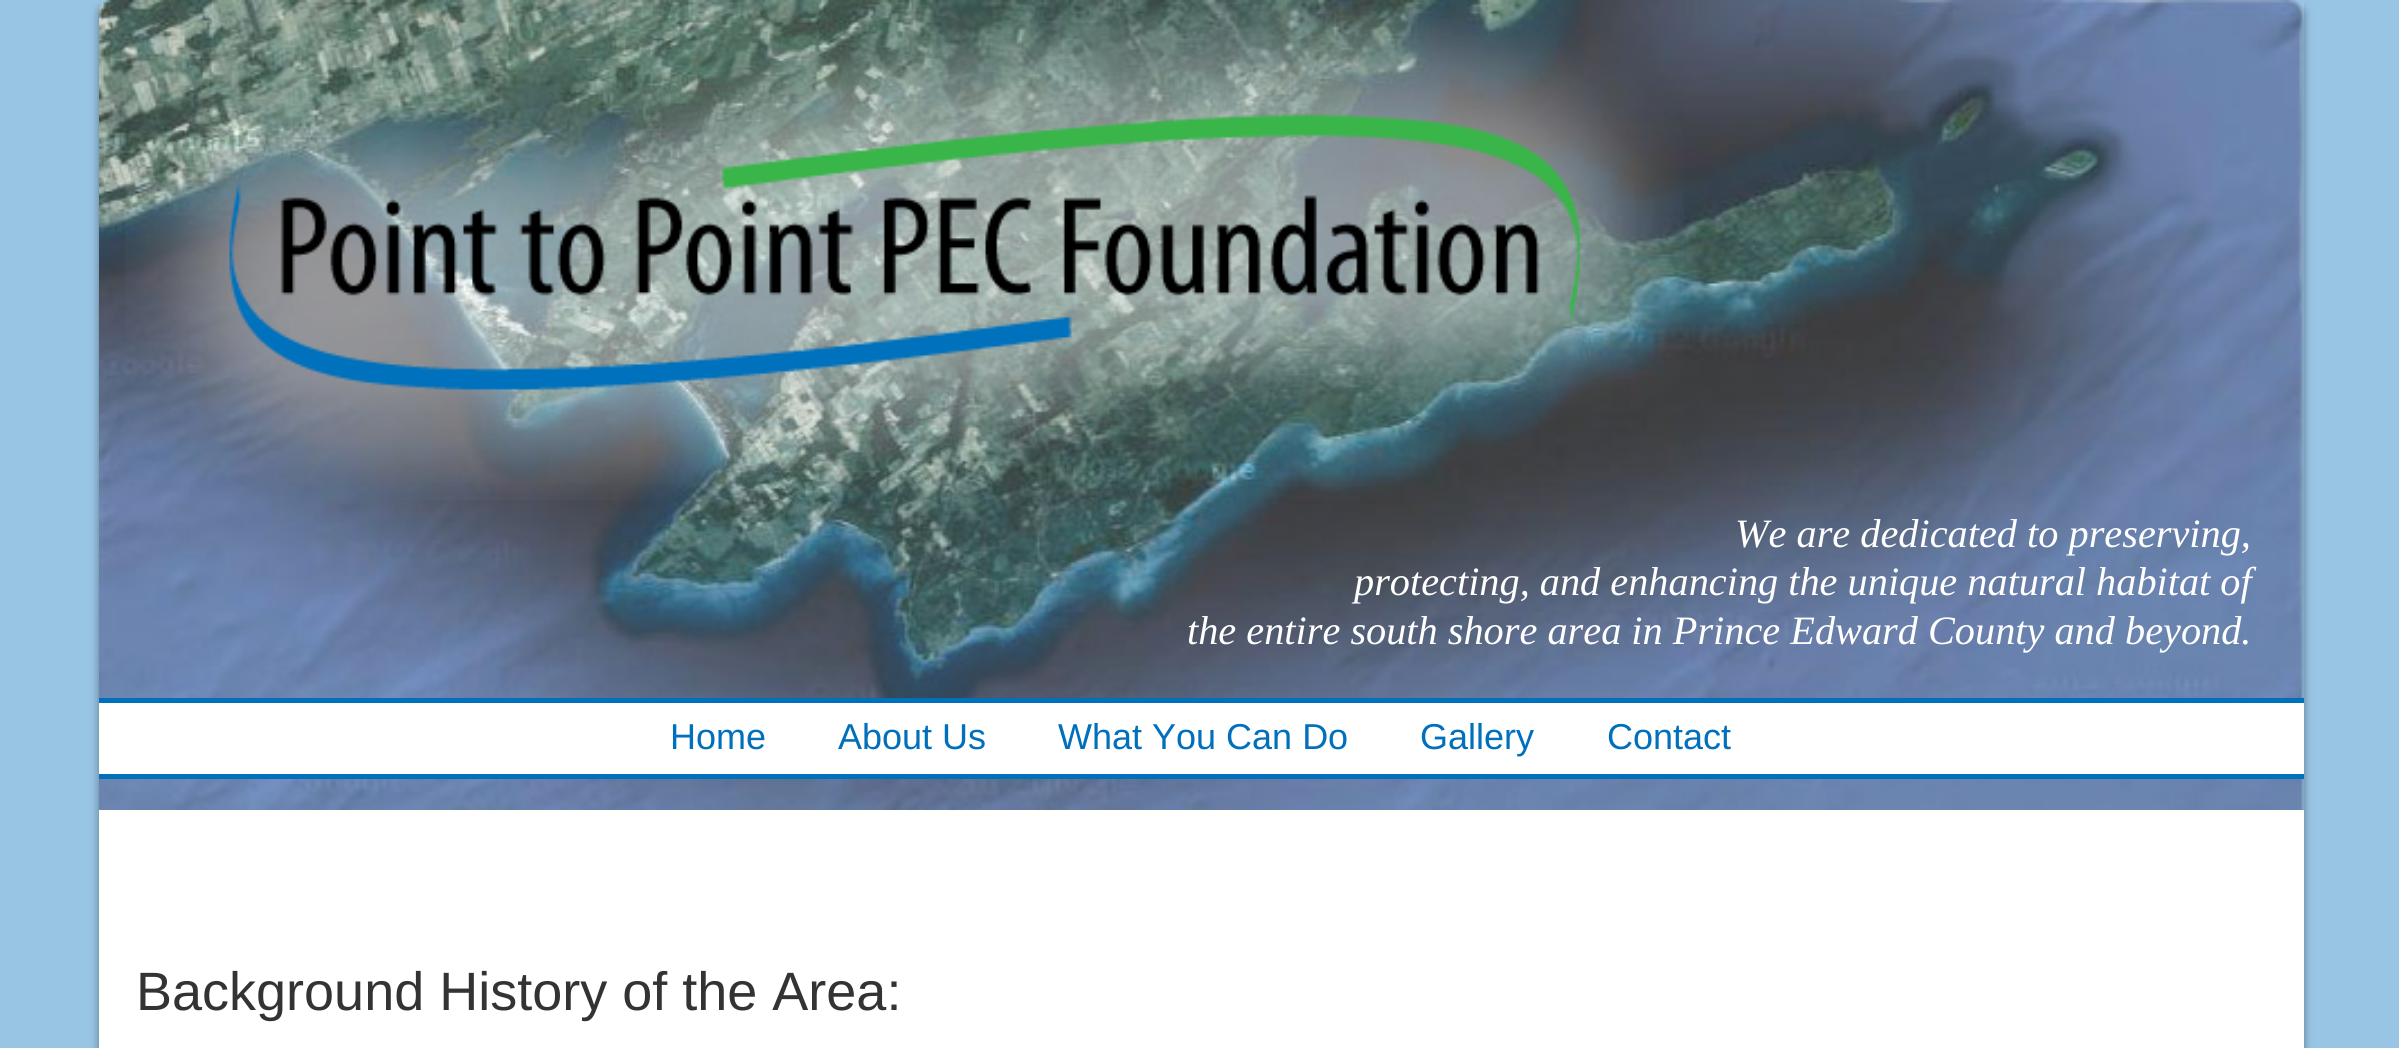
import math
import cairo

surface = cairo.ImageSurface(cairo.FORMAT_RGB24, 2399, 1048)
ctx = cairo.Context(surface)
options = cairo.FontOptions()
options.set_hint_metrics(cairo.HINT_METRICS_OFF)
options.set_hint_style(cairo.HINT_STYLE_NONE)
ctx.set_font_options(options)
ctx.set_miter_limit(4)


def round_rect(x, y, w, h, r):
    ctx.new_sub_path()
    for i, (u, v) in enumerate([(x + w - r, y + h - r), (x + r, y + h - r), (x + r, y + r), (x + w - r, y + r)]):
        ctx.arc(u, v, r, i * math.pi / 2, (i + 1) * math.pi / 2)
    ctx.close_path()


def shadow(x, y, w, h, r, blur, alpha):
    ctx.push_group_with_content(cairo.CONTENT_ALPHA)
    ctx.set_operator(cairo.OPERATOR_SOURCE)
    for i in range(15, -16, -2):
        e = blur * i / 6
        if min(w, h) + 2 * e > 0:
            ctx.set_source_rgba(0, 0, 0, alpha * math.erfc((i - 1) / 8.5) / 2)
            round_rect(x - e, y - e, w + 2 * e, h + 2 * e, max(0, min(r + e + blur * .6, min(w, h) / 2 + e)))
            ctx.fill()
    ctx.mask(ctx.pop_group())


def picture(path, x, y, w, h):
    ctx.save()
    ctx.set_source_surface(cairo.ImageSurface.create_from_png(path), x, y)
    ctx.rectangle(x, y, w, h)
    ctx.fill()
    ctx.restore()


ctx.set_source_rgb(0.6, 0.773, 0.894)
ctx.paint()
ctx.set_source_rgb(0, 0, 0)
shadow(99, 5, 2205, 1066, 9, 4.5, 0.4)
ctx.set_source_rgb(1, 1, 1)
ctx.rectangle(99, 810, 2205, 238)
ctx.fill()
picture("img1.png", 99, 0, 2205, 810)
picture("img2.png", 125, 6, 1559, 494)
ctx.select_font_face("Liberation Serif", cairo.FONT_SLANT_ITALIC)
ctx.set_font_size(40.3)
ctx.move_to(1735, 547)
ctx.show_text("We are dedicated to preserving,")
ctx.move_to(1354, 595)
ctx.show_text("protecting, and enhancing the unique natural habitat of")
ctx.move_to(1187, 644)
ctx.show_text("the entire south shore area in Prince Edward County and beyond.")
ctx.rectangle(99, 703, 2205, 71)
ctx.fill()
ctx.set_source_rgb(0, 0.435, 0.737)
ctx.rectangle(99, 698, 2205, 5)
ctx.fill()
ctx.rectangle(99, 774, 2205, 5)
ctx.fill()
ctx.select_font_face("Liberation Sans")
ctx.set_font_size(36)
ctx.move_to(670, 749)
ctx.show_text("Home")
ctx.move_to(838, 749)
ctx.show_text("About Us")
ctx.move_to(1058, 749)
ctx.show_text("What You Can Do")
ctx.move_to(1420, 749)
ctx.show_text("Gallery")
ctx.move_to(1607, 749)
ctx.show_text("Contact")
ctx.set_font_size(54)
ctx.set_source_rgb(0.2, 0.2, 0.2)
ctx.move_to(136, 1010)
ctx.show_text("Background History of the Area:")
surface.write_to_png("page.png")
